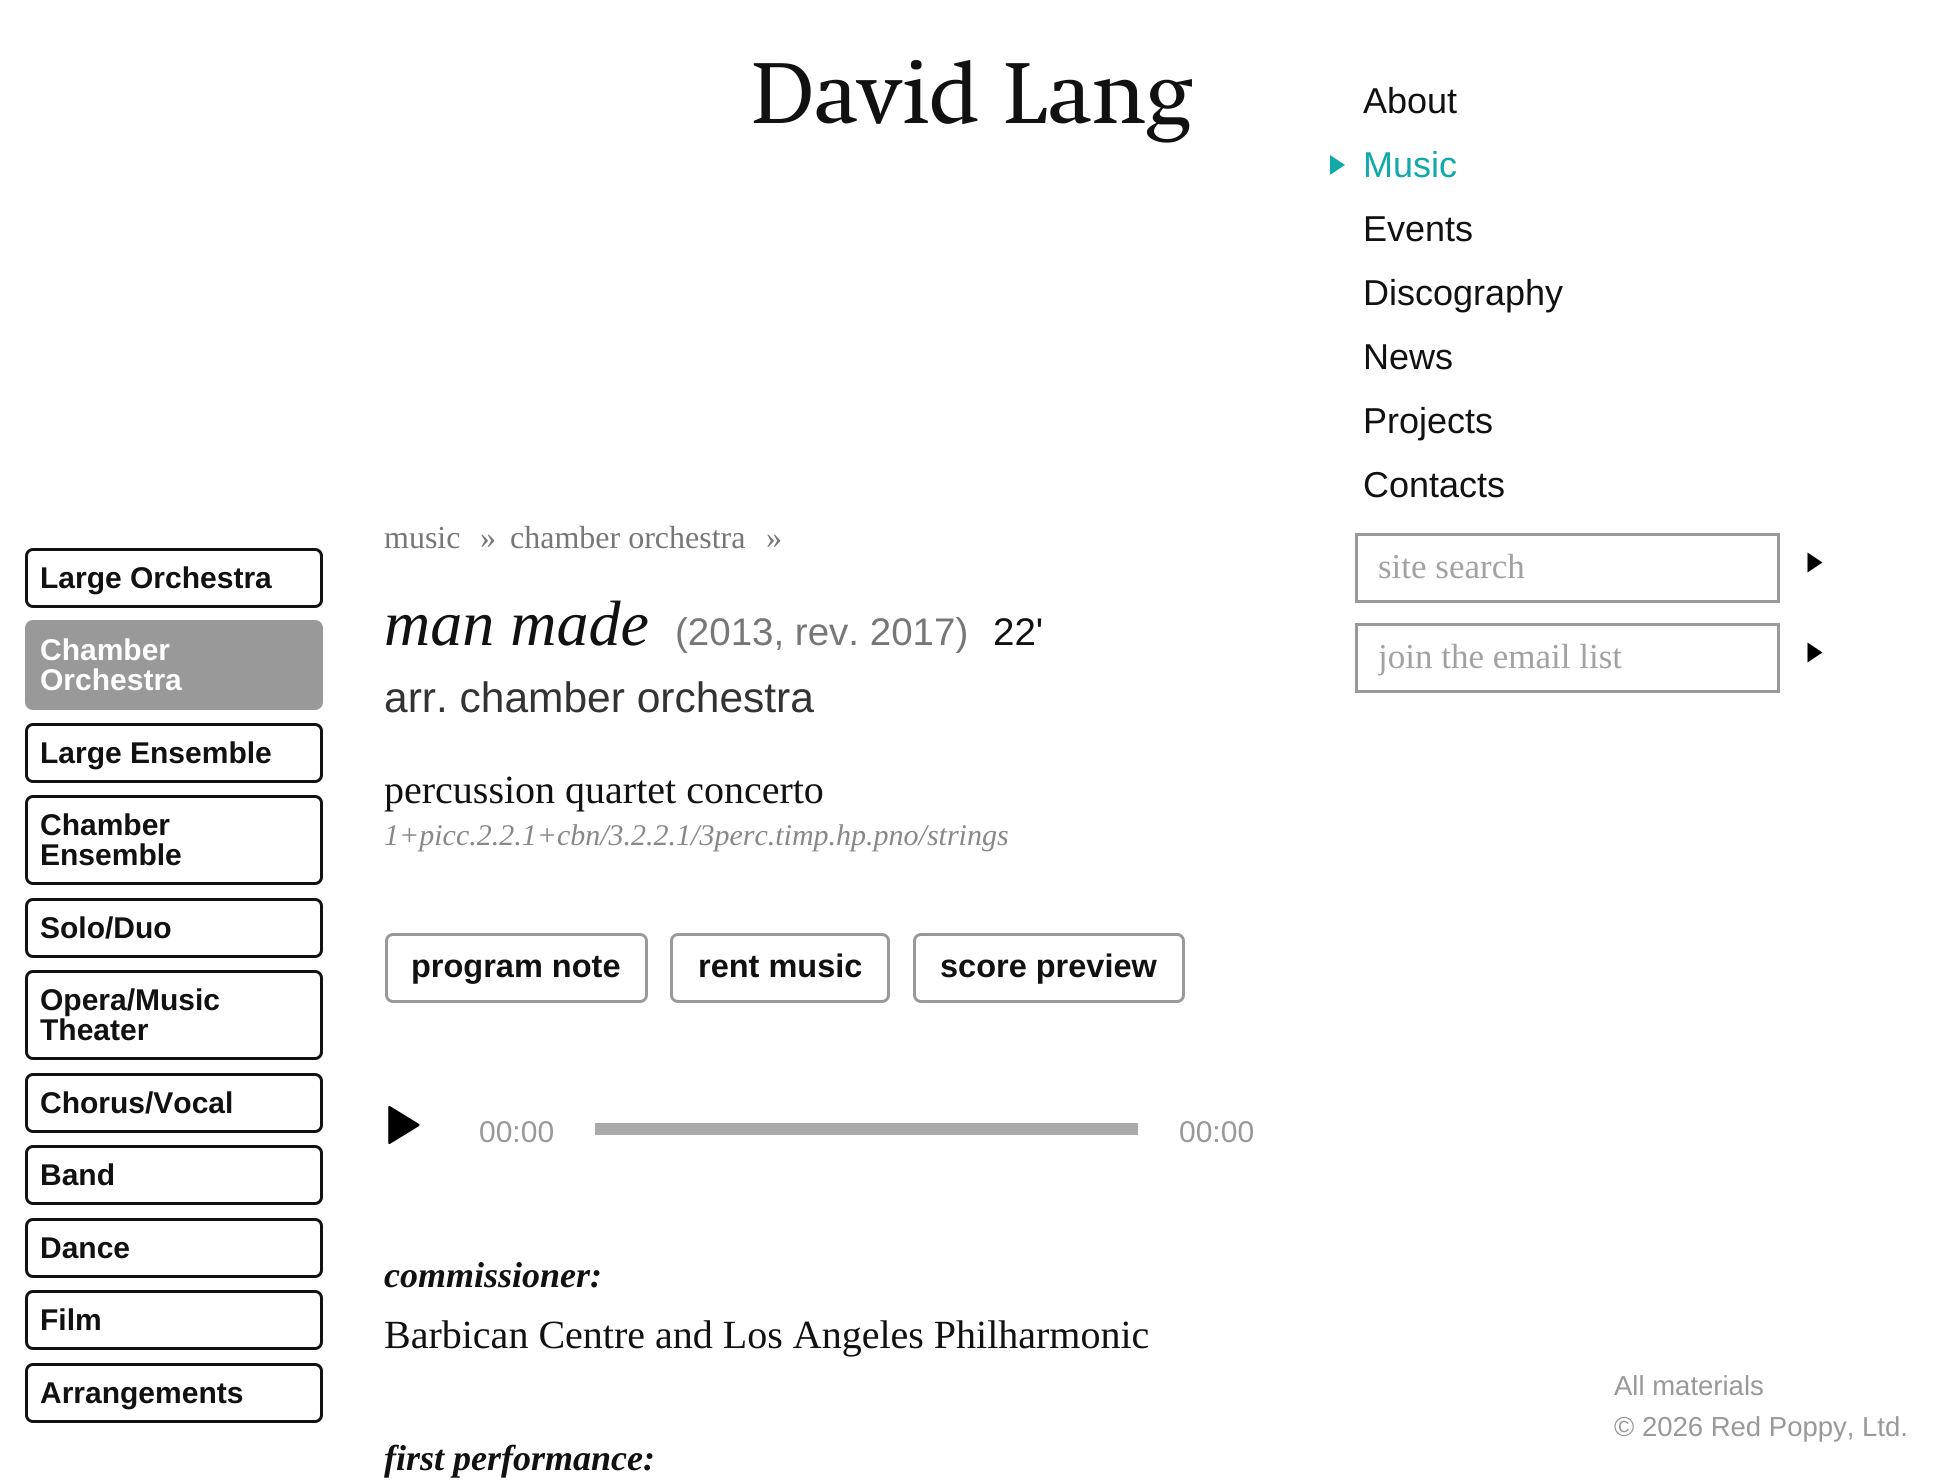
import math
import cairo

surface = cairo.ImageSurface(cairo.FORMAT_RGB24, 1942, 1481)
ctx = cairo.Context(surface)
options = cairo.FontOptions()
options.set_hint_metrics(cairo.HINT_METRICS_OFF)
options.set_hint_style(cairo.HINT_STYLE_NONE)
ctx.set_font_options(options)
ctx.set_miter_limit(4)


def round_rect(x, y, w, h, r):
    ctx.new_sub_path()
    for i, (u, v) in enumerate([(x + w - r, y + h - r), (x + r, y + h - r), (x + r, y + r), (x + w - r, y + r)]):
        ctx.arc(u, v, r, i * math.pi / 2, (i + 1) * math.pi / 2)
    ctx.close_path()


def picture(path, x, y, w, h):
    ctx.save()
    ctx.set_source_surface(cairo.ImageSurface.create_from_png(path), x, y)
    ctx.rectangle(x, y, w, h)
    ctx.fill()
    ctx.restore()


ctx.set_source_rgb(1, 1, 1)
ctx.paint()
ctx.select_font_face("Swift")
ctx.set_font_size(88)
ctx.set_source_rgb(0.067, 0.067, 0.067)
ctx.move_to(751, 123)
ctx.show_text("David Lang")
ctx.select_font_face("Liberation Sans")
ctx.set_font_size(36)
ctx.move_to(1363, 113)
ctx.show_text("About")
ctx.set_source_rgb(0.067, 0.667, 0.667)
ctx.new_path()
ctx.move_to(1330, 175)
ctx.line_to(1330, 155)
ctx.line_to(1345, 165)
ctx.close_path()
ctx.fill()
ctx.move_to(1363, 177)
ctx.show_text("Music")
ctx.set_source_rgb(0.067, 0.067, 0.067)
ctx.move_to(1363, 241)
ctx.show_text("Events")
ctx.move_to(1363, 305)
ctx.show_text("Discography")
ctx.move_to(1363, 369)
ctx.show_text("News")
ctx.move_to(1363, 433)
ctx.show_text("Projects")
ctx.move_to(1363, 497)
ctx.show_text("Contacts")
ctx.rectangle(1356.5, 534.5, 422, 67)
ctx.set_source_rgb(0.6, 0.6, 0.6)
ctx.set_line_width(3)
ctx.stroke()
ctx.select_font_face("Liberation Serif")
ctx.set_font_size(35)
ctx.set_source_rgb(0.635, 0.635, 0.635)
ctx.move_to(1378, 578)
ctx.show_text("site search")
ctx.set_source_rgb(0, 0, 0)
ctx.new_path()
ctx.move_to(1807.5, 572.5)
ctx.line_to(1807.5, 552.5)
ctx.line_to(1822.5, 562.5)
ctx.close_path()
ctx.fill()
ctx.rectangle(1356.5, 624.5, 422, 67)
ctx.set_source_rgb(0.6, 0.6, 0.6)
ctx.stroke()
ctx.save()
ctx.rectangle(1378, 638, 380, 40)
ctx.clip()
ctx.set_source_rgb(0.635, 0.635, 0.635)
ctx.move_to(1378, 668)
ctx.show_text("join the email list")
ctx.restore()
ctx.set_source_rgb(0, 0, 0)
ctx.new_path()
ctx.move_to(1807.5, 662.5)
ctx.line_to(1807.5, 642.5)
ctx.line_to(1822.5, 652.5)
ctx.close_path()
ctx.fill()
round_rect(26.5, 549.5, 295, 57, 6.5)
ctx.set_source_rgb(0.067, 0.067, 0.067)
ctx.stroke()
ctx.select_font_face("Liberation Sans", cairo.FONT_SLANT_NORMAL, cairo.FONT_WEIGHT_BOLD)
ctx.set_font_size(30)
ctx.move_to(40, 588)
ctx.show_text("Large Orchestra")
ctx.set_source_rgb(0.6, 0.6, 0.6)
round_rect(26.5, 621.5, 295, 87, 6.5)
ctx.fill_preserve()
ctx.stroke()
ctx.set_source_rgb(1, 1, 1)
ctx.move_to(40, 660)
ctx.show_text("Chamber")
ctx.move_to(40, 690)
ctx.show_text("Orchestra")
round_rect(26.5, 724.5, 295, 57, 6.5)
ctx.set_source_rgb(0.067, 0.067, 0.067)
ctx.stroke()
ctx.move_to(40, 763)
ctx.show_text("Large Ensemble")
round_rect(26.5, 796.5, 295, 87, 6.5)
ctx.stroke()
ctx.move_to(40, 835)
ctx.show_text("Chamber")
ctx.move_to(40, 865)
ctx.show_text("Ensemble")
round_rect(26.5, 899.5, 295, 57, 6.5)
ctx.stroke()
ctx.move_to(40, 938)
ctx.show_text("Solo/Duo")
round_rect(26.5, 971.5, 295, 87, 6.5)
ctx.stroke()
ctx.move_to(40, 1010)
ctx.show_text("Opera/Music")
ctx.move_to(40, 1040)
ctx.show_text("Theater")
round_rect(26.5, 1074.5, 295, 57, 6.5)
ctx.stroke()
ctx.move_to(40, 1113)
ctx.show_text("Chorus/Vocal")
round_rect(26.5, 1146.5, 295, 57, 6.5)
ctx.stroke()
ctx.move_to(40, 1185)
ctx.show_text("Band")
round_rect(26.5, 1219.5, 295, 57, 6.5)
ctx.stroke()
ctx.move_to(40, 1258)
ctx.show_text("Dance")
round_rect(26.5, 1291.5, 295, 57, 6.5)
ctx.stroke()
ctx.move_to(40, 1330)
ctx.show_text("Film")
round_rect(26.5, 1364.5, 295, 57, 6.5)
ctx.stroke()
ctx.move_to(40, 1403)
ctx.show_text("Arrangements")
ctx.select_font_face("Liberation Serif")
ctx.set_font_size(32)
ctx.set_source_rgb(0.467, 0.467, 0.467)
ctx.move_to(384, 548)
ctx.show_text("music")
ctx.move_to(480, 548)
ctx.show_text("»")
ctx.move_to(510, 548)
ctx.show_text("chamber orchestra")
ctx.move_to(766, 548)
ctx.show_text("»")
ctx.select_font_face("Liberation Serif", cairo.FONT_SLANT_ITALIC)
ctx.set_font_size(64)
ctx.set_source_rgb(0.067, 0.067, 0.067)
ctx.move_to(384, 645)
ctx.show_text("man made")
ctx.select_font_face("Liberation Sans")
ctx.set_font_size(38.5)
ctx.set_source_rgb(0.467, 0.467, 0.467)
ctx.move_to(675, 645)
ctx.show_text("(2013, rev. 2017)")
ctx.set_source_rgb(0.067, 0.067, 0.067)
ctx.move_to(993, 645)
ctx.show_text("22'")
ctx.set_font_size(42.5)
ctx.set_source_rgb(0.2, 0.2, 0.2)
ctx.move_to(384, 712)
ctx.show_text("arr. chamber orchestra")
ctx.select_font_face("Liberation Serif")
ctx.set_font_size(40)
ctx.set_source_rgb(0.067, 0.067, 0.067)
ctx.move_to(384, 803)
ctx.show_text("percussion quartet concerto")
ctx.select_font_face("Liberation Serif", cairo.FONT_SLANT_ITALIC)
ctx.set_font_size(30)
ctx.set_source_rgb(0.533, 0.533, 0.533)
ctx.move_to(384, 845)
ctx.show_text("1+picc.2.2.1+cbn/3.2.2.1/3perc.timp.hp.pno/strings")
round_rect(386.5, 934.5, 260, 67, 6.5)
ctx.set_source_rgb(0.6, 0.6, 0.6)
ctx.stroke()
ctx.select_font_face("Liberation Sans", cairo.FONT_SLANT_NORMAL, cairo.FONT_WEIGHT_BOLD)
ctx.set_font_size(32.5)
ctx.set_source_rgb(0.067, 0.067, 0.067)
ctx.move_to(411, 977)
ctx.show_text("program note")
round_rect(671.5, 934.5, 217, 67, 6.5)
ctx.set_source_rgb(0.6, 0.6, 0.6)
ctx.stroke()
ctx.set_source_rgb(0.067, 0.067, 0.067)
ctx.move_to(698, 977)
ctx.show_text("rent music")
round_rect(914.5, 934.5, 269, 67, 6.5)
ctx.set_source_rgb(0.6, 0.6, 0.6)
ctx.stroke()
ctx.set_source_rgb(0.067, 0.067, 0.067)
ctx.move_to(940, 977)
ctx.show_text("score preview")
picture("img1.png", 388, 1106, 32, 39)
ctx.select_font_face("Liberation Sans")
ctx.set_font_size(30)
ctx.set_source_rgb(0.6, 0.6, 0.6)
ctx.move_to(479, 1142)
ctx.show_text("00:00")
ctx.set_source_rgb(0.667, 0.667, 0.667)
ctx.rectangle(595, 1123, 543, 12)
ctx.fill()
ctx.set_source_rgb(0.6, 0.6, 0.6)
ctx.move_to(1179, 1142)
ctx.show_text("00:00")
ctx.select_font_face("Liberation Serif", cairo.FONT_SLANT_ITALIC, cairo.FONT_WEIGHT_BOLD)
ctx.set_font_size(36)
ctx.set_source_rgb(0.067, 0.067, 0.067)
ctx.move_to(384, 1287)
ctx.show_text("commissioner:")
ctx.select_font_face("Liberation Serif")
ctx.set_font_size(40)
ctx.move_to(384, 1348)
ctx.show_text("Barbican Centre and Los Angeles Philharmonic")
ctx.select_font_face("Liberation Serif", cairo.FONT_SLANT_ITALIC, cairo.FONT_WEIGHT_BOLD)
ctx.set_font_size(36)
ctx.move_to(384, 1470)
ctx.show_text("first performance:")
ctx.select_font_face("Liberation Sans")
ctx.set_font_size(27.5)
ctx.set_source_rgb(0.6, 0.6, 0.6)
ctx.move_to(1614, 1395)
ctx.show_text("All materials")
ctx.move_to(1614, 1436)
ctx.show_text("© 2026 Red Poppy, Ltd.")
surface.write_to_png("page.png")
